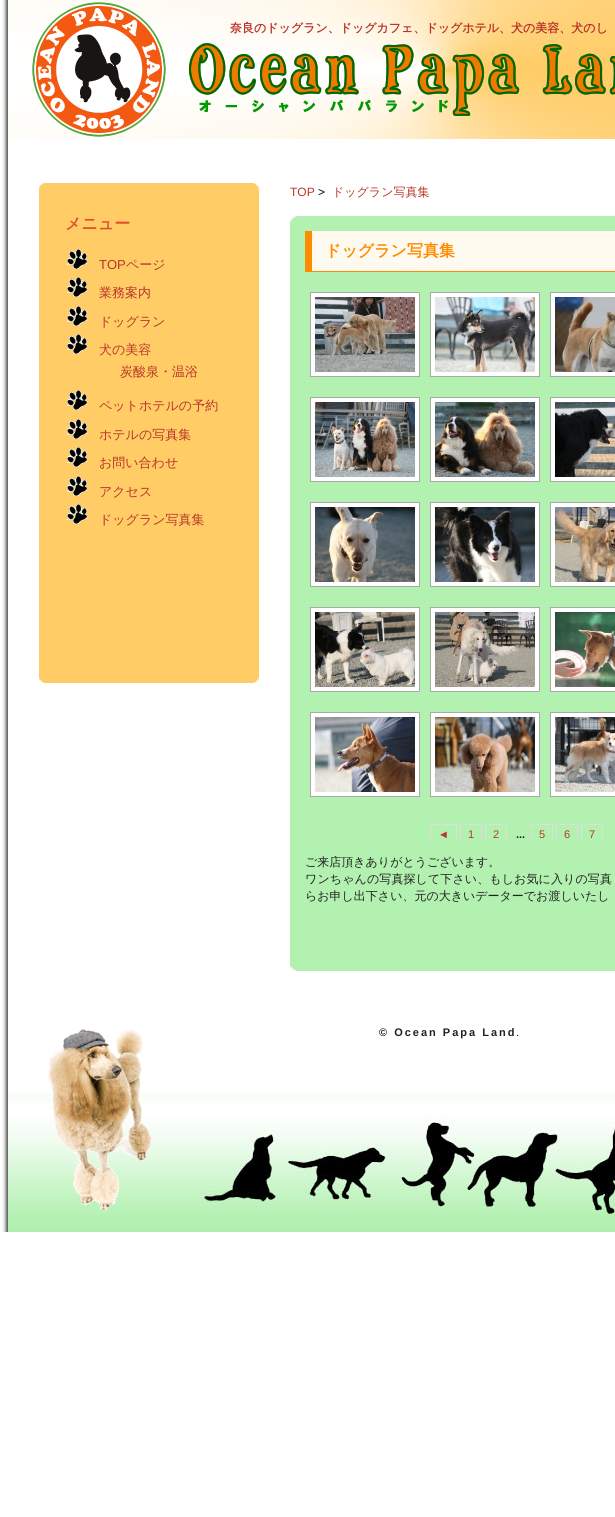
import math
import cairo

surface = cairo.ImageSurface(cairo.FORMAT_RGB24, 615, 1517)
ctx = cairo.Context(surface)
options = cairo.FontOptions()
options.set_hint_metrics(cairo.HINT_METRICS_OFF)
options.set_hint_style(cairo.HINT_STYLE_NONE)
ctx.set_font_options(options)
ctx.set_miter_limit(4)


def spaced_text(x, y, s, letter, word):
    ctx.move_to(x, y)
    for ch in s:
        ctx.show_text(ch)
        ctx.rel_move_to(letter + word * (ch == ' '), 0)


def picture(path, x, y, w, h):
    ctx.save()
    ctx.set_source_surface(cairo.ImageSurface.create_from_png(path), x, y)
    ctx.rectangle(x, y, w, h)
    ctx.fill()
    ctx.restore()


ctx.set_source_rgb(1, 1, 1)
ctx.paint()
picture("img1.png", 2, 0, 6, 1232)
picture("img2.png", 8, 0, 607, 139)
ctx.select_font_face("WenQuanYi Zen Hei", cairo.FONT_SLANT_NORMAL, cairo.FONT_WEIGHT_BOLD)
ctx.set_font_size(12)
ctx.set_source_rgb(0.725, 0.208, 0.161)
ctx.move_to(230, 32)
ctx.show_text("奈良のドッグラン、ドッグカフェ、ドッグホテル、犬の美容、犬のし")
ctx.select_font_face("Liberation Sans")
ctx.move_to(290, 196)
ctx.show_text("TOP")
ctx.set_source_rgb(0, 0, 0)
ctx.move_to(318, 196)
ctx.show_text(">")
ctx.select_font_face("WenQuanYi Zen Hei Medium")
ctx.set_source_rgb(0.725, 0.208, 0.161)
ctx.move_to(332, 196)
ctx.show_text("ドッグラン写真集")
ctx.set_source_rgb(0.702, 0.945, 0.69)
ctx.rectangle(290, 216, 325, 755)
ctx.fill()
picture("img3.png", 290, 216, 7, 8)
picture("img4.png", 290, 962, 8, 9)
ctx.set_source_rgb(1, 0.98, 0.941)
ctx.rectangle(312, 231, 303, 40)
ctx.fill()
ctx.set_source_rgb(1, 0.549, 0)
ctx.rectangle(305, 271, 310, 1)
ctx.fill()
ctx.rectangle(305, 231, 7, 41)
ctx.fill()
ctx.select_font_face("WenQuanYi Zen Hei", cairo.FONT_SLANT_NORMAL, cairo.FONT_WEIGHT_BOLD)
ctx.set_font_size(16)
ctx.move_to(325, 256)
ctx.show_text("ドッグラン写真集")
ctx.set_source_rgb(1, 1, 1)
ctx.rectangle(310.5, 292.5, 109, 84)
ctx.fill_preserve()
ctx.set_source_rgb(0.663, 0.663, 0.663)
ctx.set_line_width(1)
ctx.stroke()
picture("img5.png", 315, 297, 100, 75)
ctx.set_source_rgb(1, 1, 1)
ctx.rectangle(430.5, 292.5, 109, 84)
ctx.fill_preserve()
ctx.set_source_rgb(0.663, 0.663, 0.663)
ctx.stroke()
picture("img6.png", 435, 297, 100, 75)
ctx.set_source_rgb(1, 1, 1)
ctx.rectangle(550.5, 292.5, 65, 84)
ctx.fill_preserve()
ctx.set_source_rgb(0.663, 0.663, 0.663)
ctx.stroke()
picture("img7.png", 555, 297, 60, 75)
ctx.set_source_rgb(1, 1, 1)
ctx.rectangle(310.5, 397.5, 109, 84)
ctx.fill_preserve()
ctx.set_source_rgb(0.663, 0.663, 0.663)
ctx.stroke()
picture("img8.png", 315, 402, 100, 75)
ctx.set_source_rgb(1, 1, 1)
ctx.rectangle(430.5, 397.5, 109, 84)
ctx.fill_preserve()
ctx.set_source_rgb(0.663, 0.663, 0.663)
ctx.stroke()
picture("img9.png", 435, 402, 100, 75)
ctx.set_source_rgb(1, 1, 1)
ctx.rectangle(550.5, 397.5, 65, 84)
ctx.fill_preserve()
ctx.set_source_rgb(0.663, 0.663, 0.663)
ctx.stroke()
picture("img10.png", 555, 402, 60, 75)
ctx.set_source_rgb(1, 1, 1)
ctx.rectangle(310.5, 502.5, 109, 84)
ctx.fill_preserve()
ctx.set_source_rgb(0.663, 0.663, 0.663)
ctx.stroke()
picture("img11.png", 315, 507, 100, 75)
ctx.set_source_rgb(1, 1, 1)
ctx.rectangle(430.5, 502.5, 109, 84)
ctx.fill_preserve()
ctx.set_source_rgb(0.663, 0.663, 0.663)
ctx.stroke()
picture("img12.png", 435, 507, 100, 75)
ctx.set_source_rgb(1, 1, 1)
ctx.rectangle(550.5, 502.5, 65, 84)
ctx.fill_preserve()
ctx.set_source_rgb(0.663, 0.663, 0.663)
ctx.stroke()
picture("img13.png", 555, 507, 60, 75)
ctx.set_source_rgb(1, 1, 1)
ctx.rectangle(310.5, 607.5, 109, 84)
ctx.fill_preserve()
ctx.set_source_rgb(0.663, 0.663, 0.663)
ctx.stroke()
picture("img14.png", 315, 612, 100, 75)
ctx.set_source_rgb(1, 1, 1)
ctx.rectangle(430.5, 607.5, 109, 84)
ctx.fill_preserve()
ctx.set_source_rgb(0.663, 0.663, 0.663)
ctx.stroke()
picture("img15.png", 435, 612, 100, 75)
ctx.set_source_rgb(1, 1, 1)
ctx.rectangle(550.5, 607.5, 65, 84)
ctx.fill_preserve()
ctx.set_source_rgb(0.663, 0.663, 0.663)
ctx.stroke()
picture("img16.png", 555, 612, 60, 75)
ctx.set_source_rgb(1, 1, 1)
ctx.rectangle(310.5, 712.5, 109, 84)
ctx.fill_preserve()
ctx.set_source_rgb(0.663, 0.663, 0.663)
ctx.stroke()
picture("img17.png", 315, 717, 100, 75)
ctx.set_source_rgb(1, 1, 1)
ctx.rectangle(430.5, 712.5, 109, 84)
ctx.fill_preserve()
ctx.set_source_rgb(0.663, 0.663, 0.663)
ctx.stroke()
picture("img18.png", 435, 717, 100, 75)
ctx.set_source_rgb(1, 1, 1)
ctx.rectangle(550.5, 712.5, 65, 84)
ctx.fill_preserve()
ctx.set_source_rgb(0.663, 0.663, 0.663)
ctx.stroke()
picture("img19.png", 555, 717, 60, 75)
ctx.save()
ctx.rectangle(305, 288, 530, 552)
ctx.clip()
ctx.rectangle(430.5, 824.5, 26, 19)
ctx.set_source_rgb(0.867, 0.867, 0.867)
ctx.stroke()
ctx.restore()
ctx.select_font_face("Liberation Sans")
ctx.set_font_size(11)
ctx.set_source_rgb(0.725, 0.208, 0.161)
ctx.move_to(438, 838)
ctx.show_text("◄")
ctx.save()
ctx.rectangle(305, 288, 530, 552)
ctx.clip()
ctx.rectangle(460.5, 824.5, 21, 19)
ctx.set_source_rgb(0.867, 0.867, 0.867)
ctx.stroke()
ctx.restore()
ctx.move_to(468, 838)
ctx.show_text("1")
ctx.save()
ctx.rectangle(305, 288, 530, 552)
ctx.clip()
ctx.rectangle(485.5, 824.5, 21, 19)
ctx.set_source_rgb(0.867, 0.867, 0.867)
ctx.stroke()
ctx.restore()
ctx.move_to(493, 838)
ctx.show_text("2")
ctx.select_font_face("Liberation Sans", cairo.FONT_SLANT_NORMAL, cairo.FONT_WEIGHT_BOLD)
ctx.set_source_rgb(0.129, 0.129, 0.129)
ctx.move_to(516, 838)
ctx.show_text("...")
ctx.save()
ctx.rectangle(305, 288, 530, 552)
ctx.clip()
ctx.rectangle(531.5, 824.5, 21, 19)
ctx.set_source_rgb(0.867, 0.867, 0.867)
ctx.stroke()
ctx.restore()
ctx.select_font_face("Liberation Sans")
ctx.set_source_rgb(0.725, 0.208, 0.161)
ctx.move_to(539, 838)
ctx.show_text("5")
ctx.save()
ctx.rectangle(305, 288, 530, 552)
ctx.clip()
ctx.rectangle(556.5, 824.5, 21, 19)
ctx.set_source_rgb(0.867, 0.867, 0.867)
ctx.stroke()
ctx.restore()
ctx.move_to(564, 838)
ctx.show_text("6")
ctx.save()
ctx.rectangle(305, 288, 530, 552)
ctx.clip()
ctx.rectangle(581.5, 824.5, 21, 19)
ctx.set_source_rgb(0.867, 0.867, 0.867)
ctx.stroke()
ctx.restore()
ctx.move_to(589, 838)
ctx.show_text("7")
ctx.select_font_face("WenQuanYi Zen Hei Medium")
ctx.set_font_size(12)
ctx.set_source_rgb(0.129, 0.129, 0.129)
ctx.move_to(305, 866)
ctx.show_text("ご来店頂きありがとうございます。")
spaced_text(305, 883, "ワンちゃんの写真探して下さい、もしお気に入りの写真", 0.1, 0)
ctx.move_to(305, 900)
ctx.show_text("らお申し出下さい、元の大きいデーターでお渡しいたし")
ctx.set_source_rgb(1, 0.8, 0.4)
ctx.rectangle(39, 183, 220, 500)
ctx.fill()
picture("img20.png", 39, 183, 10, 10)
picture("img21.png", 242, 183, 17, 16)
picture("img22.png", 242, 666, 17, 17)
picture("img23.png", 39, 666, 16, 17)
ctx.select_font_face("WenQuanYi Zen Hei", cairo.FONT_SLANT_NORMAL, cairo.FONT_WEIGHT_BOLD)
ctx.set_font_size(16)
ctx.set_source_rgb(0.894, 0.306, 0.192)
ctx.move_to(65, 229)
ctx.show_text("メニュー")
picture("img24.png", 67, 249, 20, 20)
ctx.select_font_face("Liberation Sans")
ctx.set_font_size(13)
ctx.set_source_rgb(0.725, 0.208, 0.161)
ctx.move_to(99, 269)
ctx.show_text("TOP")
ctx.select_font_face("WenQuanYi Zen Hei Medium")
ctx.move_to(126, 269)
ctx.show_text("ページ")
picture("img24.png", 67, 277, 20, 20)
ctx.move_to(99, 297)
ctx.show_text("業務案内")
picture("img24.png", 67, 306, 20, 20)
ctx.move_to(99, 326)
ctx.show_text("ドッグラン")
picture("img24.png", 67, 334, 20, 20)
ctx.move_to(99, 354)
ctx.show_text("犬の美容")
ctx.move_to(120, 376)
ctx.show_text("炭酸泉・温浴")
picture("img24.png", 67, 390, 20, 20)
ctx.move_to(99, 410)
ctx.show_text("ペットホテルの予約")
picture("img24.png", 67, 419, 20, 20)
ctx.move_to(99, 439)
ctx.show_text("ホテルの写真集")
picture("img24.png", 67, 447, 20, 20)
ctx.move_to(99, 467)
ctx.show_text("お問い合わせ")
picture("img24.png", 67, 476, 20, 20)
ctx.move_to(99, 496)
ctx.show_text("アクセス")
picture("img24.png", 67, 504, 20, 20)
ctx.move_to(99, 524)
ctx.show_text("ドッグラン写真集")
picture("img25.png", 8, 1029, 607, 203)
ctx.select_font_face("Liberation Sans", cairo.FONT_SLANT_NORMAL, cairo.FONT_WEIGHT_BOLD)
ctx.set_font_size(11)
ctx.set_source_rgb(0.129, 0.129, 0.129)
spaced_text(379, 1036, "© Ocean Papa Land", 2, 0)
ctx.select_font_face("Liberation Sans")
spaced_text(516, 1036, ".", 2, 0)
surface.write_to_png("page.png")
